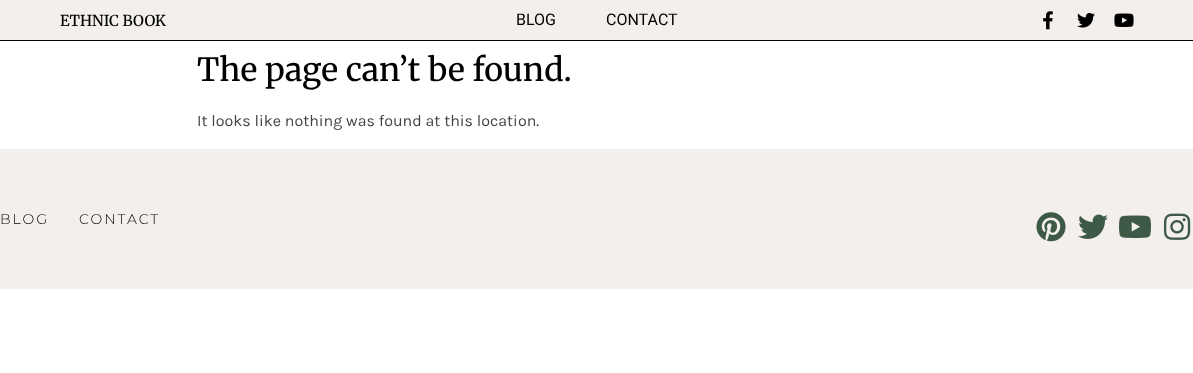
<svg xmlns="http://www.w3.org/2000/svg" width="1193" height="373">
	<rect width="100%" height="100%" fill="#FFFFFF" />
	<rect x="0" y="0" width="1193" height="40" fill="#F2EFEC" />
	<rect x="0" y="40" width="1193" height="1" fill="#000000" />
	<text x="60" y="26" font-family="Merriweather" font-size="15" font-weight="500" fill="#000000">ETHNIC BOOK</text>
	<g font-family="Roboto" font-size="16" fill="#000000">
		<text x="516" y="25">BLOG</text>
		<text x="606" y="25">CONTACT</text>
	</g>
	<image x="1043" y="11" width="10" height="19" href="assets/img1.png" />
	<image x="1077" y="12" width="18" height="16" href="assets/img2.png" />
	<image x="1114" y="13" width="20" height="14" href="assets/img3.png" />
	<text x="197" y="81" font-family="Merriweather" font-size="32" font-weight="500" fill="#000000">The page can’t be found.</text>
	<text x="197" y="126" font-family="Karla" font-size="16" fill="#444444">It looks like nothing was found at this location.</text>
	<rect x="0" y="149" width="1193" height="140" fill="#F2EFEC" />
	<g font-family="Montserrat" font-size="14" font-weight="300" letter-spacing="2" fill="#000000">
		<text x="0" y="224">BLOG</text>
		<text x="79" y="224">CONTACT</text>
	</g>
	<image x="1036" y="212" width="30" height="30" href="assets/img4.png" />
	<image x="1078" y="214" width="30" height="25" href="assets/img5.png" />
	<image x="1119" y="215" width="32" height="23" href="assets/img6.png" />
	<image x="1163" y="213" width="28" height="27" href="assets/img7.png" />
</svg>
